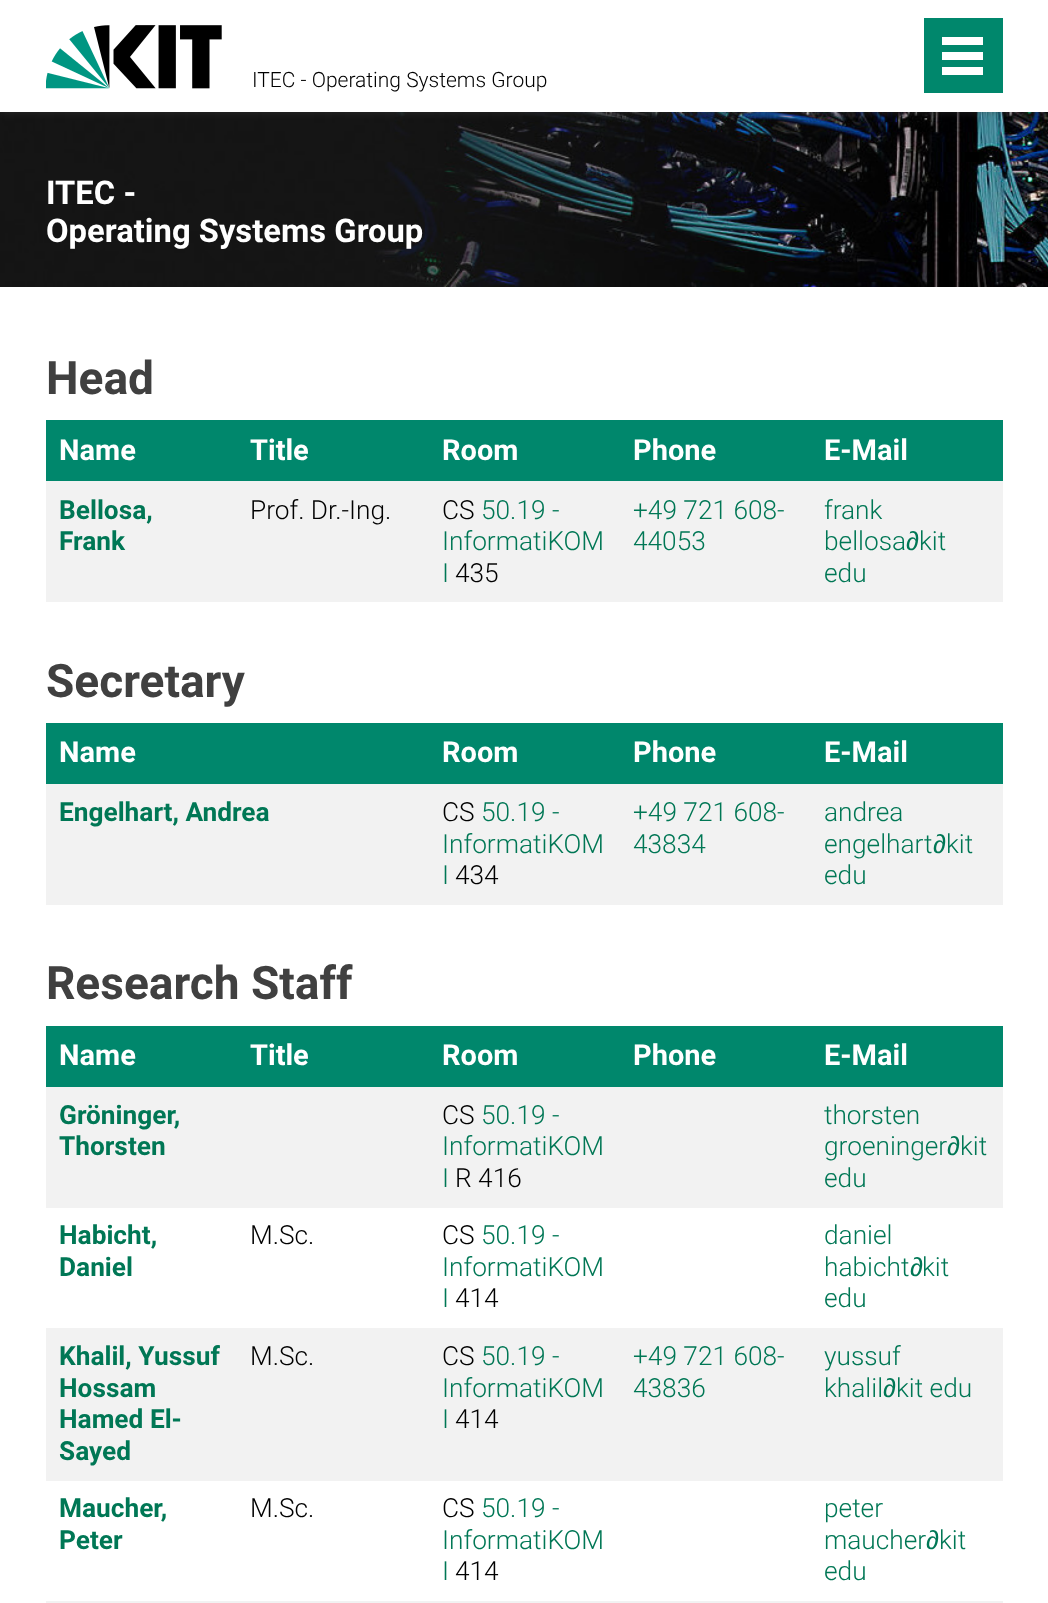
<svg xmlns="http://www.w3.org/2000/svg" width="1048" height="1603">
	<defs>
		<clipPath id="clip1"><rect x="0" y="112" width="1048" height="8" /></clipPath>
	</defs>
	<rect width="100%" height="100%" fill="#FFFFFF" />
	<image x="0" y="112" width="1048" height="175" href="assets/img2.png" />
	<g clip-path="url(#clip1)">
		<rect x="0" y="0" width="1048" height="112" fill="#404040" fill-opacity="0.5" filter="blur(4.5px)" />
	</g>
	<image x="46" y="25" width="176" height="64" href="assets/img1.png" />
	<text x="252" y="87" font-family="Roboto" font-size="21" font-weight="300" fill="#000000">ITEC - Operating Systems Group</text>
	<rect x="924" y="18" width="79" height="75" fill="#00876C" />
	<rect x="942" y="67" width="41" height="8" fill="#FFFFFF" />
	<rect x="942" y="52" width="41" height="8" fill="#FFFFFF" />
	<rect x="942" y="37" width="41" height="8" fill="#FFFFFF" />
	<g font-family="Roboto" font-size="32.75" font-weight="700" fill="#FFFFFF">
		<text x="46" y="204">ITEC -</text>
		<text x="46" y="242">Operating Systems Group</text>
	</g>
	<text x="46" y="394" font-family="Roboto" font-size="46" font-weight="700" fill="#404040">Head</text>
	<rect x="46" y="420" width="957" height="61" fill="#00876C" />
	<g font-family="Roboto" font-size="29" font-weight="700" fill="#FFFFFF">
		<text x="59" y="460">Name</text>
		<text x="250" y="460">Title</text>
		<text x="442" y="460">Room</text>
		<text x="633" y="460">Phone</text>
		<text x="824" y="460">E-Mail</text>
	</g>
	<rect x="46" y="481" width="957" height="121" fill="#F2F2F2" />
	<g font-family="Roboto" font-size="26.25" font-weight="700" fill="#007755">
		<text x="59" y="519">Bellosa,</text>
		<text x="59" y="550">Frank</text>
	</g>
	<g font-family="Roboto" font-size="26.25" font-weight="300" fill="#000000">
		<text x="250" y="519">Prof. Dr.-Ing.</text>
		<text x="442" y="519">CS</text>
	</g>
	<g font-family="Roboto" font-size="26.25" font-weight="300" fill="#007755">
		<text x="481" y="519">50.19 -</text>
		<text x="442" y="550">InformatiKOM</text>
		<text x="442" y="582">I</text>
	</g>
	<text x="455" y="582" font-family="Roboto" font-size="26.25" font-weight="300" fill="#000000">435</text>
	<g font-family="Roboto" font-size="26.25" font-weight="300" fill="#007755">
		<text x="633" y="519">+49 721 608-</text>
		<text x="633" y="550">44053</text>
		<text x="824" y="519">frank</text>
		<text x="824" y="550">bellosa</text>
	</g>
	<text x="906" y="550" font-family="Liberation Sans" font-size="26.25" fill="#007755">∂</text>
	<g font-family="Roboto" font-size="26.25" font-weight="300" fill="#007755">
		<text x="919" y="550">kit</text>
		<text x="824" y="582">edu</text>
	</g>
	<text x="46" y="697" font-family="Roboto" font-size="46" font-weight="700" fill="#404040">Secretary</text>
	<rect x="46" y="723" width="957" height="61" fill="#00876C" />
	<g font-family="Roboto" font-size="29" font-weight="700" fill="#FFFFFF">
		<text x="59" y="762">Name</text>
		<text x="442" y="762">Room</text>
		<text x="633" y="762">Phone</text>
		<text x="824" y="762">E-Mail</text>
	</g>
	<rect x="46" y="784" width="957" height="121" fill="#F2F2F2" />
	<text x="59" y="821" font-family="Roboto" font-size="26.25" font-weight="700" fill="#007755">Engelhart, Andrea</text>
	<text x="442" y="821" font-family="Roboto" font-size="26.25" font-weight="300" fill="#000000">CS</text>
	<g font-family="Roboto" font-size="26.25" font-weight="300" fill="#007755">
		<text x="481" y="821">50.19 -</text>
		<text x="442" y="853">InformatiKOM</text>
		<text x="442" y="884">I</text>
	</g>
	<text x="455" y="884" font-family="Roboto" font-size="26.25" font-weight="300" fill="#000000">434</text>
	<g font-family="Roboto" font-size="26.25" font-weight="300" fill="#007755">
		<text x="633" y="821">+49 721 608-</text>
		<text x="633" y="853">43834</text>
		<text x="824" y="821">andrea</text>
		<text x="824" y="853">engelhart</text>
	</g>
	<text x="933" y="853" font-family="Liberation Sans" font-size="26.25" fill="#007755">∂</text>
	<g font-family="Roboto" font-size="26.25" font-weight="300" fill="#007755">
		<text x="946" y="853">kit</text>
		<text x="824" y="884">edu</text>
	</g>
	<text x="46" y="999" font-family="Roboto" font-size="46" font-weight="700" fill="#404040">Research Staff</text>
	<rect x="46" y="1026" width="957" height="61" fill="#00876C" />
	<g font-family="Roboto" font-size="29" font-weight="700" fill="#FFFFFF">
		<text x="59" y="1065">Name</text>
		<text x="250" y="1065">Title</text>
		<text x="442" y="1065">Room</text>
		<text x="633" y="1065">Phone</text>
		<text x="824" y="1065">E-Mail</text>
	</g>
	<rect x="46" y="1087" width="957" height="121" fill="#F2F2F2" />
	<g font-family="Roboto" font-size="26.25" font-weight="700" fill="#007755">
		<text x="59" y="1124">Gröninger,</text>
		<text x="59" y="1155">Thorsten</text>
	</g>
	<text x="442" y="1124" font-family="Roboto" font-size="26.25" font-weight="300" fill="#000000">CS</text>
	<g font-family="Roboto" font-size="26.25" font-weight="300" fill="#007755">
		<text x="481" y="1124">50.19 -</text>
		<text x="442" y="1155">InformatiKOM</text>
		<text x="442" y="1187">I</text>
	</g>
	<text x="455" y="1187" font-family="Roboto" font-size="26.25" font-weight="300" fill="#000000">R 416</text>
	<g font-family="Roboto" font-size="26.25" font-weight="300" fill="#007755">
		<text x="824" y="1124">thorsten</text>
		<text x="824" y="1155">groeninger</text>
	</g>
	<text x="947" y="1155" font-family="Liberation Sans" font-size="26.25" fill="#007755">∂</text>
	<g font-family="Roboto" font-size="26.25" font-weight="300" fill="#007755">
		<text x="960" y="1155">kit</text>
		<text x="824" y="1187">edu</text>
	</g>
	<g font-family="Roboto" font-size="26.25" font-weight="700" fill="#007755">
		<text x="59" y="1244">Habicht,</text>
		<text x="59" y="1276">Daniel</text>
	</g>
	<g font-family="Roboto" font-size="26.25" font-weight="300" fill="#000000">
		<text x="250" y="1244">M.Sc.</text>
		<text x="442" y="1244">CS</text>
	</g>
	<g font-family="Roboto" font-size="26.25" font-weight="300" fill="#007755">
		<text x="481" y="1244">50.19 -</text>
		<text x="442" y="1276">InformatiKOM</text>
		<text x="442" y="1307">I</text>
	</g>
	<text x="455" y="1307" font-family="Roboto" font-size="26.25" font-weight="300" fill="#000000">414</text>
	<g font-family="Roboto" font-size="26.25" font-weight="300" fill="#007755">
		<text x="824" y="1244">daniel</text>
		<text x="824" y="1276">habicht</text>
	</g>
	<text x="910" y="1276" font-family="Liberation Sans" font-size="26.25" fill="#007755">∂</text>
	<g font-family="Roboto" font-size="26.25" font-weight="300" fill="#007755">
		<text x="922" y="1276">kit</text>
		<text x="824" y="1307">edu</text>
	</g>
	<rect x="46" y="1328" width="957" height="153" fill="#F2F2F2" />
	<g font-family="Roboto" font-size="26.25" font-weight="700" fill="#007755">
		<text x="59" y="1365">Khalil, Yussuf</text>
		<text x="59" y="1397">Hossam</text>
		<text x="59" y="1428">Hamed El-</text>
		<text x="59" y="1460">Sayed</text>
	</g>
	<g font-family="Roboto" font-size="26.25" font-weight="300" fill="#000000">
		<text x="250" y="1365">M.Sc.</text>
		<text x="442" y="1365">CS</text>
	</g>
	<g font-family="Roboto" font-size="26.25" font-weight="300" fill="#007755">
		<text x="481" y="1365">50.19 -</text>
		<text x="442" y="1397">InformatiKOM</text>
		<text x="442" y="1428">I</text>
	</g>
	<text x="455" y="1428" font-family="Roboto" font-size="26.25" font-weight="300" fill="#000000">414</text>
	<g font-family="Roboto" font-size="26.25" font-weight="300" fill="#007755">
		<text x="633" y="1365">+49 721 608-</text>
		<text x="633" y="1397">43836</text>
		<text x="824" y="1365">yussuf</text>
		<text x="824" y="1397">khalil</text>
	</g>
	<text x="883" y="1397" font-family="Liberation Sans" font-size="26.25" fill="#007755">∂</text>
	<text x="896" y="1397" font-family="Roboto" font-size="26.25" font-weight="300" fill="#007755">kit edu</text>
	<g font-family="Roboto" font-size="26.25" font-weight="700" fill="#007755">
		<text x="59" y="1517">Maucher,</text>
		<text x="59" y="1549">Peter</text>
	</g>
	<g font-family="Roboto" font-size="26.25" font-weight="300" fill="#000000">
		<text x="250" y="1517">M.Sc.</text>
		<text x="442" y="1517">CS</text>
	</g>
	<g font-family="Roboto" font-size="26.25" font-weight="300" fill="#007755">
		<text x="481" y="1517">50.19 -</text>
		<text x="442" y="1549">InformatiKOM</text>
		<text x="442" y="1580">I</text>
	</g>
	<text x="455" y="1580" font-family="Roboto" font-size="26.25" font-weight="300" fill="#000000">414</text>
	<g font-family="Roboto" font-size="26.25" font-weight="300" fill="#007755">
		<text x="824" y="1517">peter</text>
		<text x="824" y="1549">maucher</text>
	</g>
	<text x="926" y="1549" font-family="Liberation Sans" font-size="26.25" fill="#007755">∂</text>
	<g font-family="Roboto" font-size="26.25" font-weight="300" fill="#007755">
		<text x="939" y="1549">kit</text>
		<text x="824" y="1580">edu</text>
	</g>
	<rect x="46" y="1601" width="957" height="2" fill="#F2F2F2" />
</svg>
